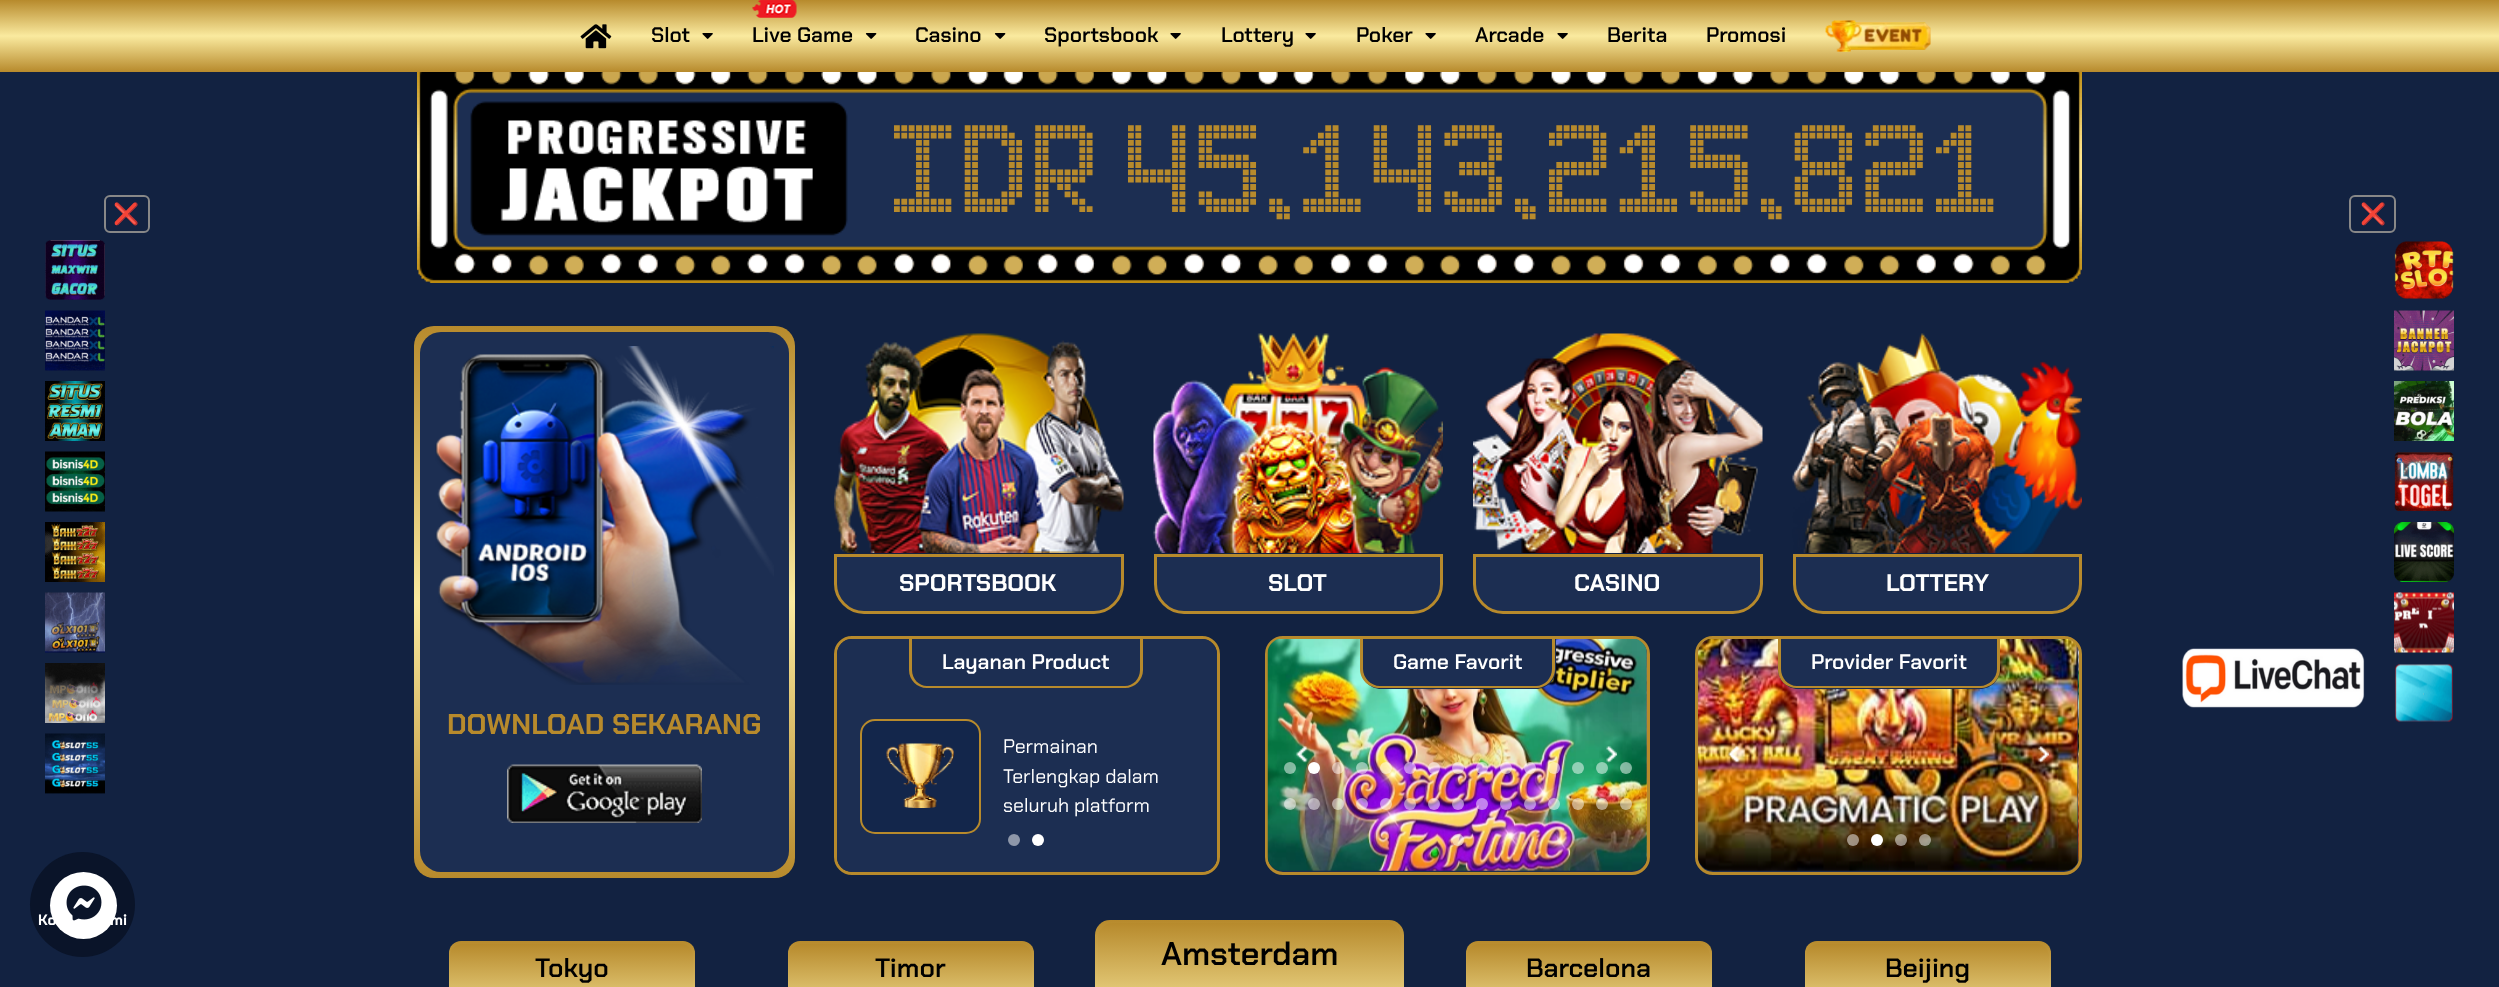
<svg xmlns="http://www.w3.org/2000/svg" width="2499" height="987">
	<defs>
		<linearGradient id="g1" gradientUnits="userSpaceOnUse" x1="1250" y1="0" x2="1250" y2="72"><stop offset="0" stop-color="#B78A2C" /><stop offset="0.5" stop-color="#FAEA9F" /><stop offset="1" stop-color="#B78A2C" /></linearGradient>
		<linearGradient id="g2" gradientUnits="userSpaceOnUse" x1="1176" y1="325" x2="1176" y2="878"><stop offset="0" stop-color="#B78A2C" /><stop offset="0.5" stop-color="#FAEA9F" /><stop offset="1" stop-color="#B78A2C" /></linearGradient>
		<linearGradient id="g3" gradientUnits="userSpaceOnUse" x1="1250" y1="920" x2="1250" y2="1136"><stop offset="0" stop-color="#B78A2C" /><stop offset="0.5" stop-color="#FAEA9F" /><stop offset="1" stop-color="#B78A2C" /></linearGradient>
		<linearGradient id="g4" gradientUnits="userSpaceOnUse" x1="1250" y1="923" x2="1250" y2="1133"><stop offset="0" stop-color="#B78A2C" /><stop offset="0.5" stop-color="#FAEA9F" /><stop offset="1" stop-color="#B78A2C" /></linearGradient>
		<linearGradient id="g5" gradientUnits="userSpaceOnUse" x1="572" y1="941" x2="572" y2="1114"><stop offset="0" stop-color="#B78A2C" /><stop offset="0.5" stop-color="#FAEA9F" /><stop offset="1" stop-color="#B78A2C" /></linearGradient>
		<linearGradient id="g6" gradientUnits="userSpaceOnUse" x1="572" y1="944" x2="572" y2="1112"><stop offset="0" stop-color="#B78A2C" /><stop offset="0.5" stop-color="#FAEA9F" /><stop offset="1" stop-color="#B78A2C" /></linearGradient>
		<linearGradient id="g7" gradientUnits="userSpaceOnUse" x1="911" y1="941" x2="911" y2="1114"><stop offset="0" stop-color="#B78A2C" /><stop offset="0.5" stop-color="#FAEA9F" /><stop offset="1" stop-color="#B78A2C" /></linearGradient>
		<linearGradient id="g8" gradientUnits="userSpaceOnUse" x1="911" y1="944" x2="911" y2="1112"><stop offset="0" stop-color="#B78A2C" /><stop offset="0.5" stop-color="#FAEA9F" /><stop offset="1" stop-color="#B78A2C" /></linearGradient>
		<linearGradient id="g9" gradientUnits="userSpaceOnUse" x1="1589" y1="941" x2="1589" y2="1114"><stop offset="0" stop-color="#B78A2C" /><stop offset="0.5" stop-color="#FAEA9F" /><stop offset="1" stop-color="#B78A2C" /></linearGradient>
		<linearGradient id="g10" gradientUnits="userSpaceOnUse" x1="1589" y1="944" x2="1589" y2="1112"><stop offset="0" stop-color="#B78A2C" /><stop offset="0.5" stop-color="#FAEA9F" /><stop offset="1" stop-color="#B78A2C" /></linearGradient>
		<linearGradient id="g11" gradientUnits="userSpaceOnUse" x1="1928" y1="941" x2="1928" y2="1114"><stop offset="0" stop-color="#B78A2C" /><stop offset="0.5" stop-color="#FAEA9F" /><stop offset="1" stop-color="#B78A2C" /></linearGradient>
		<linearGradient id="g12" gradientUnits="userSpaceOnUse" x1="1928" y1="944" x2="1928" y2="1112"><stop offset="0" stop-color="#B78A2C" /><stop offset="0.5" stop-color="#FAEA9F" /><stop offset="1" stop-color="#B78A2C" /></linearGradient>
	</defs>
	<rect width="100%" height="100%" fill="#122241" />
	<rect x="0" y="0" width="2499" height="72" fill="url(#g1)" />
	<image x="580" y="24" width="32" height="25" href="assets/img1.png" />
	<text x="651" y="42" font-family="Chakra Petch" font-size="21" font-weight="600" fill="#000000">Slot</text>
	<image x="702" y="33" width="11" height="6" href="assets/img2.png" />
	<image x="752" y="0" width="45" height="18" href="assets/img3.png" />
	<text x="752" y="42" font-family="Chakra Petch" font-size="21" font-weight="600" fill="#000000">Live Game</text>
	<image x="865" y="33" width="12" height="6" href="assets/img4.png" />
	<text x="915" y="42" font-family="Chakra Petch" font-size="21" font-weight="600" fill="#000000">Casino</text>
	<image x="994" y="33" width="12" height="6" href="assets/img4.png" />
	<text x="1044" y="42" font-family="Chakra Petch" font-size="21" font-weight="600" fill="#000000">Sportsbook</text>
	<image x="1170" y="33" width="11" height="6" href="assets/img2.png" />
	<text x="1221" y="42" font-family="Chakra Petch" font-size="21" font-weight="600" fill="#000000">Lottery</text>
	<image x="1305" y="33" width="11" height="6" href="assets/img2.png" />
	<text x="1356" y="42" font-family="Chakra Petch" font-size="21" font-weight="600" fill="#000000">Poker</text>
	<image x="1425" y="33" width="11" height="6" href="assets/img2.png" />
	<text x="1475" y="42" font-family="Chakra Petch" font-size="21" font-weight="600" fill="#000000">Arcade</text>
	<image x="1557" y="33" width="11" height="6" href="assets/img2.png" />
	<g font-family="Chakra Petch" font-size="21" font-weight="600" fill="#000000">
		<text x="1607" y="42">Berita</text>
		<text x="1706" y="42">Promosi</text>
	</g>
	<image x="1825" y="20" width="106" height="32" href="assets/img5.png" />
	<rect x="105" y="196" width="44" height="36" rx="5" fill="none" stroke="#888888" stroke-width="2" />
	<text x="113" y="221" font-family="Noto Color Emoji" font-size="21" fill="#000000">❌</text>
	<image x="45" y="240" width="60" height="60" href="assets/img6.png" />
	<image x="45" y="310" width="60" height="61" href="assets/img7.png" />
	<image x="45" y="381" width="60" height="60" href="assets/img8.png" />
	<image x="45" y="451" width="60" height="61" href="assets/img9.png" />
	<image x="45" y="522" width="60" height="60" href="assets/img10.png" />
	<image x="45" y="592" width="60" height="61" href="assets/img11.png" />
	<image x="45" y="663" width="60" height="60" href="assets/img12.png" />
	<image x="45" y="733" width="60" height="61" href="assets/img13.png" />
	<image x="417" y="72" width="1665" height="211" href="assets/img14.png" />
	<g font-family="'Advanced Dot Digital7'" font-size="73.5" font-weight="700" letter-spacing="4.5" fill="#B78A2C">
		<text x="894" y="212">IDR</text>
		<text x="1128" y="212">45,143,215,821</text>
	</g>
	<rect x="414" y="326" width="381" height="552" rx="20" fill="url(#g2)" />
	<rect x="420" y="332" width="369" height="540" rx="21" fill="#1C2E52" />
	<image x="435" y="346" width="339" height="339" href="assets/img15.png" />
	<text x="447" y="734" font-family="Chakra Petch" font-size="28.5" font-weight="700" fill="#B78A2C">DOWNLOAD SEKARANG</text>
	<image x="507" y="764" width="195" height="59" href="assets/img16.png" />
	<image x="834" y="333" width="290" height="220" href="assets/img17.png" />
	<path d="M835.5 555.5H1122.5V584C1122.5 599.5 1109.5 612.5 1094 612.5H864C848.5 612.5 835.5 599.5 835.5 584Z" fill="#1C2E52" stroke="#B78A2C" stroke-width="3" />
	<text x="899" y="591" font-family="Chakra Petch" font-size="24" font-weight="700" fill="#FFFFFF">SPORTSBOOK</text>
	<image x="1153" y="333" width="290" height="220" href="assets/img18.png" />
	<path d="M1155.5 555.5H1441.5V584C1441.5 599.5 1428.5 612.5 1413 612.5H1184C1168.5 612.5 1155.5 599.5 1155.5 584Z" fill="#1C2E52" stroke="#B78A2C" stroke-width="3" />
	<text x="1268" y="591" font-family="Chakra Petch" font-size="24" font-weight="700" fill="#FFFFFF">SLOT</text>
	<image x="1473" y="333" width="290" height="220" href="assets/img19.png" />
	<path d="M1474.5 555.5H1761.5V584C1761.5 599.5 1748.5 612.5 1733 612.5H1503C1487.5 612.5 1474.5 599.5 1474.5 584Z" fill="#1C2E52" stroke="#B78A2C" stroke-width="3" />
	<text x="1574" y="591" font-family="Chakra Petch" font-size="24" font-weight="700" fill="#FFFFFF">CASINO</text>
	<image x="1792" y="333" width="290" height="220" href="assets/img20.png" />
	<path d="M1794.5 555.5H2080.5V584C2080.5 599.5 2067.5 612.5 2052 612.5H1823C1807.5 612.5 1794.5 599.5 1794.5 584Z" fill="#1C2E52" stroke="#B78A2C" stroke-width="3" />
	<text x="1886" y="591" font-family="Chakra Petch" font-size="24" font-weight="700" fill="#FFFFFF">LOTTERY</text>
	<rect x="835.5" y="637.5" width="383" height="236" rx="16.5" fill="none" stroke="#B78A2C" stroke-width="3" />
	<rect x="837" y="639" width="380" height="233" rx="15" fill="#1C2E52" />
	<path d="M909 639H1143V670C1143 680 1135 688 1125 688H927C917 688 909 680 909 670ZM912 639H1140V670C1140 679 1133 686 1125 686H927C919 686 912 679 912 670Z" fill="#B78A2C" fill-rule="evenodd" />
	<text x="942" y="669" font-family="Chakra Petch" font-size="21" font-weight="600" fill="#FFFFFF">Layanan Product</text>
	<rect x="861" y="720" width="119" height="113" rx="14" fill="#13264B" stroke="#B78A2C" stroke-width="2" />
	<image x="886" y="743" width="68" height="65" href="assets/img21.png" />
	<g font-family="Chakra Petch" font-size="19.5" fill="#FFFFFF">
		<text x="1003" y="753">Permainan</text>
		<text x="1003" y="783">Terlengkap dalam</text>
		<text x="1003" y="812">seluruh platform</text>
	</g>
	<circle cx="1014" cy="840" r="6" fill="#8E97A9" />
	<circle cx="1038" cy="840" r="6" fill="#FFFFFF" />
	<rect x="1266.5" y="637.5" width="382" height="236" rx="16.5" fill="#1C2E52" stroke="#B78A2C" stroke-width="3" />
	<image x="1267" y="639" width="380" height="232" href="assets/img22.png" />
	<image x="1646" y="649" width="1" height="212" href="assets/img23.png" />
	<image x="1296" y="746" width="12" height="17" href="assets/img24.png" />
	<circle cx="1602" cy="768" r="6" fill="#FFFFFF" fill-opacity="0.5" />
	<image x="1606" y="746" width="11" height="17" href="assets/img25.png" />
	<circle cx="1290" cy="768" r="6" fill="#FFFFFF" fill-opacity="0.5" />
	<circle cx="1314" cy="768" r="6" fill="#FFFFFF" />
	<circle cx="1338" cy="768" r="6" fill="#FFFFFF" fill-opacity="0.5" />
	<circle cx="1362" cy="768" r="6" fill="#FFFFFF" fill-opacity="0.5" />
	<circle cx="1386" cy="768" r="6" fill="#FFFFFF" fill-opacity="0.5" />
	<circle cx="1410" cy="768" r="6" fill="#FFFFFF" fill-opacity="0.5" />
	<circle cx="1434" cy="768" r="6" fill="#FFFFFF" fill-opacity="0.5" />
	<circle cx="1458" cy="768" r="6" fill="#FFFFFF" fill-opacity="0.5" />
	<circle cx="1482" cy="768" r="6" fill="#FFFFFF" fill-opacity="0.5" />
	<circle cx="1506" cy="768" r="6" fill="#FFFFFF" fill-opacity="0.5" />
	<circle cx="1530" cy="768" r="6" fill="#FFFFFF" fill-opacity="0.5" />
	<circle cx="1554" cy="768" r="6" fill="#FFFFFF" fill-opacity="0.5" />
	<circle cx="1578" cy="768" r="6" fill="#FFFFFF" fill-opacity="0.5" />
	<circle cx="1626" cy="768" r="6" fill="#FFFFFF" fill-opacity="0.5" />
	<circle cx="1290" cy="804" r="6" fill="#FFFFFF" fill-opacity="0.5" />
	<circle cx="1314" cy="804" r="6" fill="#FFFFFF" fill-opacity="0.5" />
	<circle cx="1338" cy="804" r="6" fill="#FFFFFF" fill-opacity="0.5" />
	<circle cx="1362" cy="804" r="6" fill="#FFFFFF" fill-opacity="0.5" />
	<circle cx="1386" cy="804" r="6" fill="#FFFFFF" fill-opacity="0.5" />
	<circle cx="1410" cy="804" r="6" fill="#FFFFFF" fill-opacity="0.5" />
	<circle cx="1434" cy="804" r="6" fill="#FFFFFF" fill-opacity="0.5" />
	<circle cx="1458" cy="804" r="6" fill="#FFFFFF" fill-opacity="0.5" />
	<circle cx="1482" cy="804" r="6" fill="#FFFFFF" fill-opacity="0.5" />
	<circle cx="1506" cy="804" r="6" fill="#FFFFFF" fill-opacity="0.5" />
	<circle cx="1530" cy="804" r="6" fill="#FFFFFF" fill-opacity="0.5" />
	<circle cx="1554" cy="804" r="6" fill="#FFFFFF" fill-opacity="0.5" />
	<circle cx="1578" cy="804" r="6" fill="#FFFFFF" fill-opacity="0.5" />
	<circle cx="1602" cy="804" r="6" fill="#FFFFFF" fill-opacity="0.5" />
	<circle cx="1626" cy="804" r="6" fill="#FFFFFF" fill-opacity="0.5" />
	<circle cx="1458" cy="840" r="6" fill="#FFFFFF" fill-opacity="0.5" />
	<path d="M1361 639H1556V669C1556 680 1547 689 1536 689H1381C1370 689 1361 680 1361 669Z" fill="#1C2E52" />
	<path d="M1360 639H1555V669C1555 680 1546 688 1536 688H1380C1369 688 1360 680 1360 669ZM1363 639H1552V669C1552 678 1545 686 1536 686H1380C1371 686 1363 678 1363 669Z" fill="#B78A2C" fill-rule="evenodd" />
	<text x="1393" y="669" font-family="Chakra Petch" font-size="21" font-weight="600" fill="#FFFFFF">Game Favorit</text>
	<rect x="1696.5" y="637.5" width="384" height="236" rx="16.5" fill="#1C2E52" stroke="#B78A2C" stroke-width="3" />
	<image x="1698" y="650" width="1" height="211" href="assets/img28.png" />
	<image x="1698" y="639" width="380" height="232" href="assets/img26.png" />
	<image x="2078" y="648" width="1" height="213" href="assets/img27.png" />
	<image x="1728" y="746" width="12" height="17" href="assets/img29.png" />
	<image x="2038" y="746" width="11" height="17" href="assets/img30.png" />
	<circle cx="1853" cy="840" r="6" fill="#FFFFFF" fill-opacity="0.5" />
	<circle cx="1877" cy="840" r="6" fill="#FFFFFF" />
	<circle cx="1901" cy="840" r="6" fill="#FFFFFF" fill-opacity="0.5" />
	<circle cx="1925" cy="840" r="6" fill="#FFFFFF" fill-opacity="0.5" />
	<path d="M1778 639H2000V669C2000 680 1991 689 1980 689H1798C1787 689 1778 680 1778 669Z" fill="#1C2E52" />
	<path d="M1778 639H2000V669C2000 680 1991 688 1980 688H1797C1786 688 1778 680 1778 669ZM1781 639H1997V669C1997 678 1989 686 1980 686H1797C1788 686 1781 678 1781 669Z" fill="#B78A2C" fill-rule="evenodd" />
	<text x="1811" y="669" font-family="Chakra Petch" font-size="21" font-weight="600" fill="#FFFFFF">Provider Favorit</text>
	<rect x="1095" y="920" width="309" height="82" rx="15" fill="url(#g3)" />
	<rect x="1098" y="923" width="303" height="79" rx="15" fill="url(#g4)" />
	<text x="1161" y="965" font-family="Chakra Petch" font-size="33" font-weight="600" fill="#000000">Amsterdam</text>
	<rect x="449" y="941" width="246" height="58" rx="12" fill="url(#g5)" />
	<rect x="450" y="944" width="243" height="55" rx="12" fill="url(#g6)" />
	<text x="535" y="977" font-family="Chakra Petch" font-size="26.5" font-weight="600" fill="#000000">Tokyo</text>
	<rect x="788" y="941" width="246" height="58" rx="12" fill="url(#g7)" />
	<rect x="789" y="944" width="243" height="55" rx="12" fill="url(#g8)" />
	<text x="875" y="977" font-family="Chakra Petch" font-size="26.5" font-weight="600" fill="#000000">Timor</text>
	<rect x="1466" y="941" width="246" height="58" rx="12" fill="url(#g9)" />
	<rect x="1467" y="944" width="243" height="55" rx="12" fill="url(#g10)" />
	<text x="1526" y="977" font-family="Chakra Petch" font-size="26.5" font-weight="600" fill="#000000">Barcelona</text>
	<rect x="1805" y="941" width="246" height="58" rx="12" fill="url(#g11)" />
	<rect x="1806" y="944" width="243" height="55" rx="12" fill="url(#g12)" />
	<text x="1885" y="977" font-family="Chakra Petch" font-size="26.5" font-weight="600" fill="#000000">Beijing</text>
	<rect x="2350" y="196" width="45" height="36" rx="5" fill="none" stroke="#888888" stroke-width="2" />
	<text x="2360" y="221" font-family="Noto Color Emoji" font-size="21" fill="#000000">❌</text>
	<image x="2394" y="241" width="60" height="58" href="assets/img31.png" />
	<image x="2394" y="310" width="60" height="61" href="assets/img32.png" />
	<image x="2394" y="381" width="60" height="60" href="assets/img33.png" />
	<image x="2394" y="452" width="60" height="59" href="assets/img34.png" />
	<image x="2394" y="522" width="60" height="60" href="assets/img35.png" />
	<image x="2394" y="592" width="60" height="61" href="assets/img36.png" />
	<image x="2395" y="664" width="58" height="58" href="assets/img37.png" />
	<image x="2182" y="648" width="183" height="60" href="assets/img38.png" />
	<circle cx="82.5" cy="904.5" r="52.5" fill="#0A1429" />
	<circle cx="83.5" cy="905.5" r="33.5" fill="#FFFFFF" />
	<image x="66" y="885" width="36" height="36" href="assets/img39.png" />
	<g font-family="Chakra Petch" font-size="15" font-weight="700" fill="#FFFFFF">
		<text x="38" y="925">Ko</text>
		<text x="110" y="925">mi</text>
	</g>
</svg>
